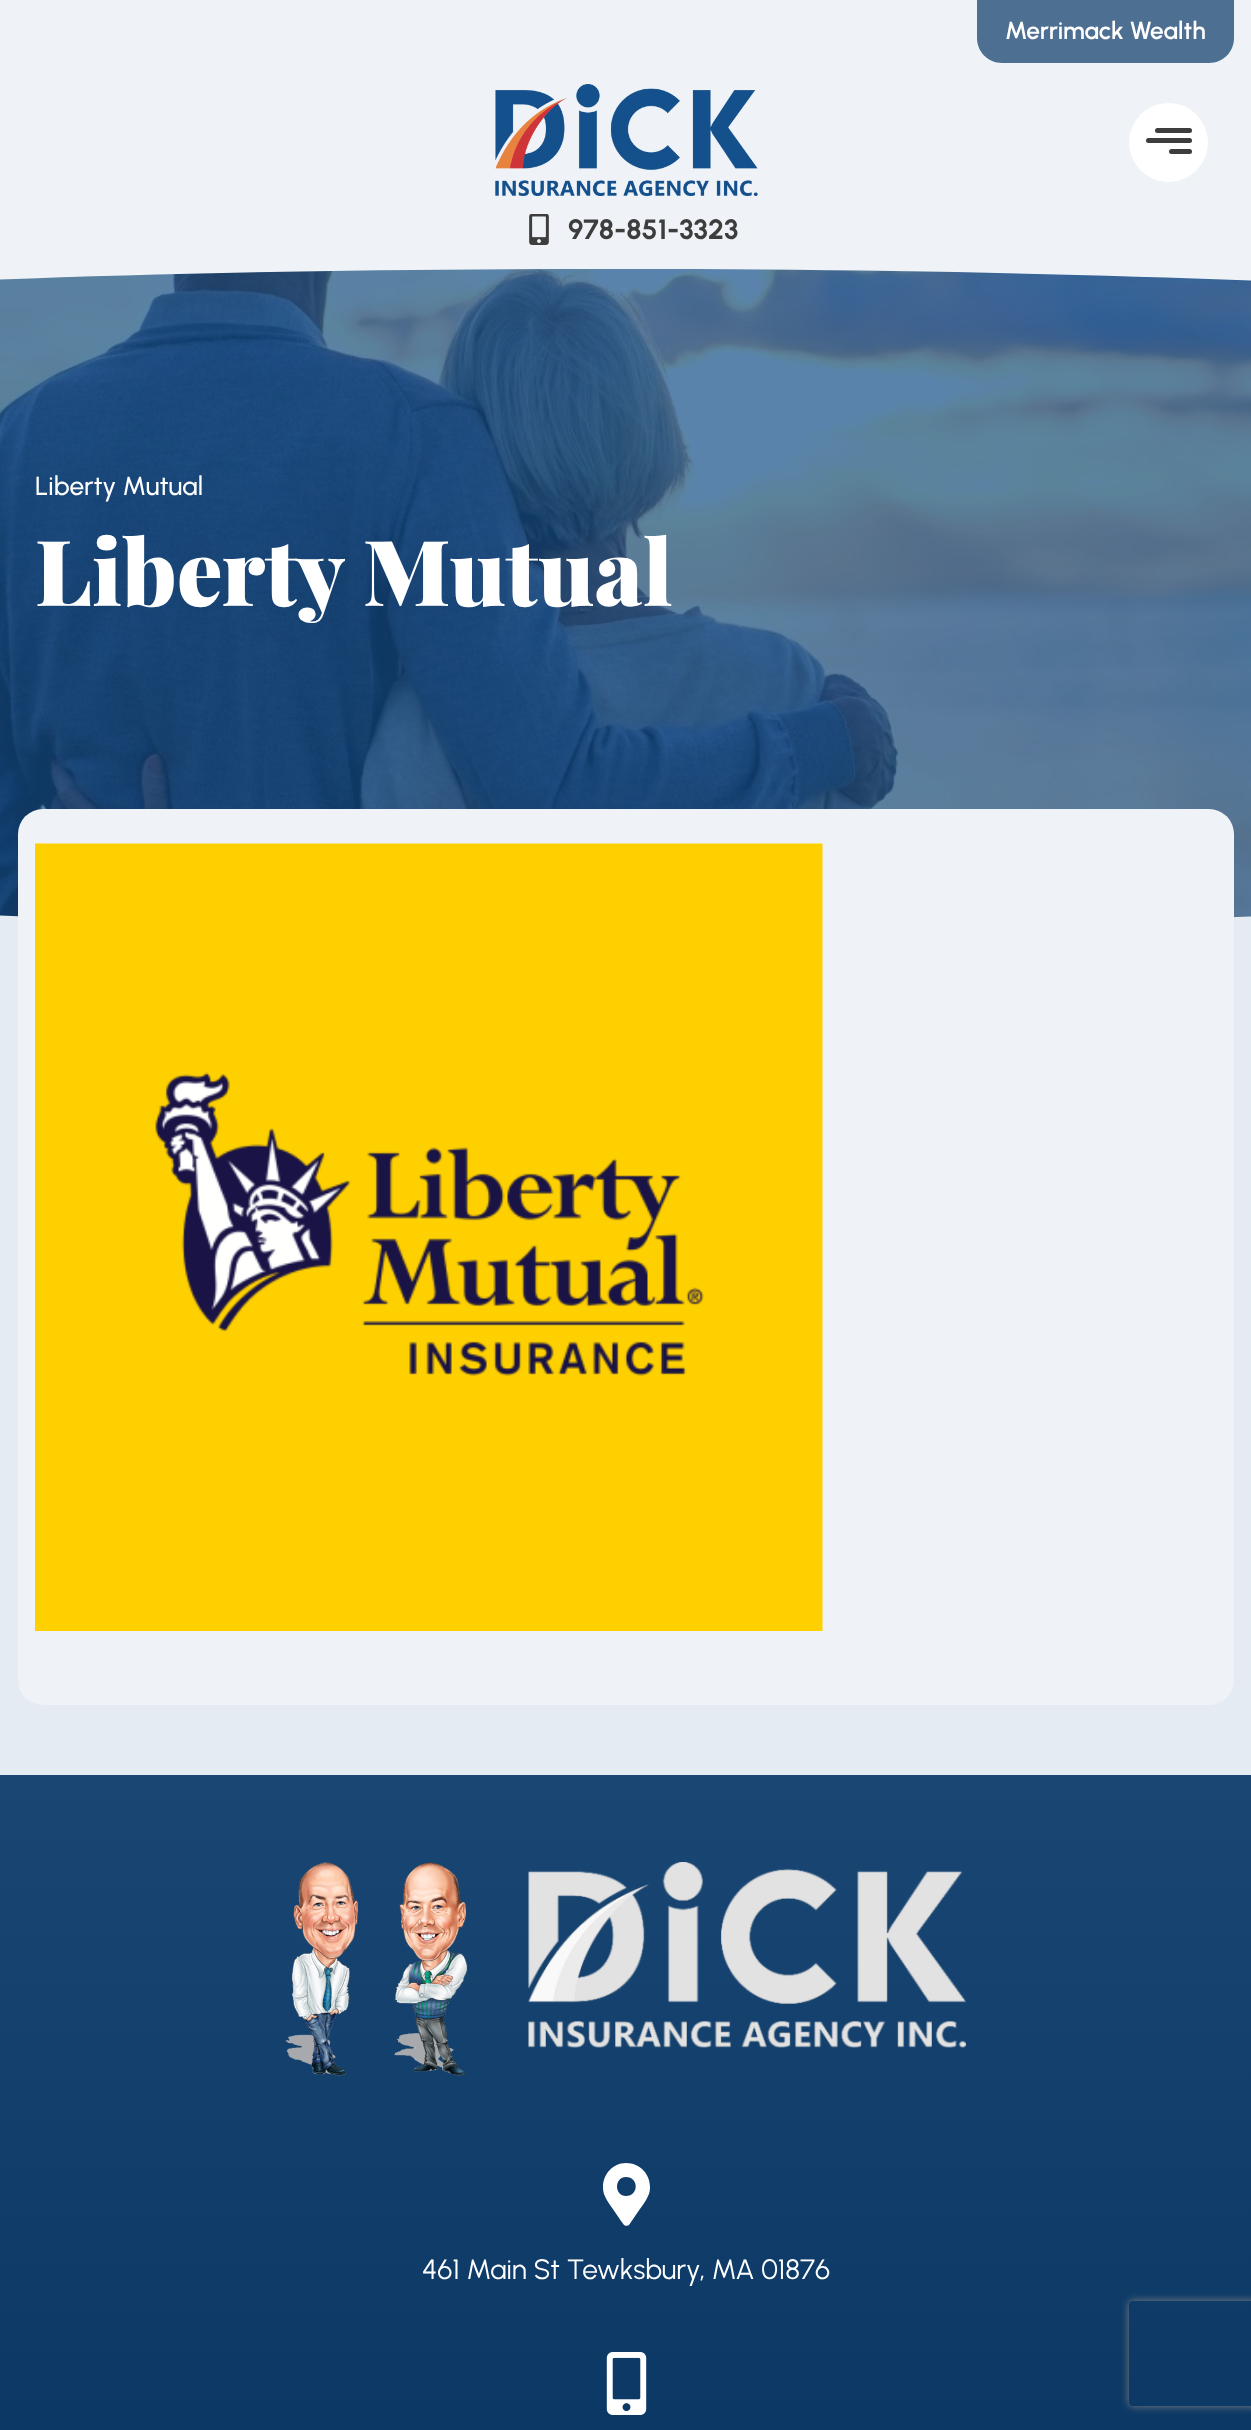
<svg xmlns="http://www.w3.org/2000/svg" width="1251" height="2430">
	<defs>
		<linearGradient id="g1" gradientUnits="userSpaceOnUse" x1="626" y1="1775" x2="626" y2="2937"><stop offset="0" stop-color="#194673" /><stop offset="1" stop-color="#002D59" /></linearGradient>
		<clipPath id="clip1"><path d="M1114 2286H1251V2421H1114ZM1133 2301H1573C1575 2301 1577 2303 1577 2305V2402C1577 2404 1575 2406 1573 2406H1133C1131 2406 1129 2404 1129 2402V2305C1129 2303 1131 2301 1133 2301Z" clip-rule="evenodd" /></clipPath>
	</defs>
	<rect width="100%" height="100%" fill="#E4EBF3" />
	<rect x="0" y="0" width="1251" height="263" fill="#EFF3F7" />
	<path d="M977 0H1234V38C1234 52 1223 63 1209 63H1002C988 63 977 52 977 38Z" fill="#4D6F91" />
	<text x="1005" y="39" font-family="Urbanist" font-size="24.5" font-weight="600" fill="#FFFFFF">Merrimack Wealth</text>
	<circle cx="1168.5" cy="142.5" r="39.5" fill="#FFFFFF" />
	<rect x="1155" y="128" width="37" height="5" rx="2.5" fill="#3D3D3D" />
	<rect x="1146" y="138" width="46" height="5" rx="2.5" fill="#3D3D3D" />
	<rect x="1169" y="149" width="23" height="5" rx="2.5" fill="#3D3D3D" />
	<image x="495" y="84" width="263" height="112" href="assets/img1.png" />
	<image x="529" y="214" width="20" height="31" href="assets/img2.png" />
	<text x="568" y="239" font-family="Urbanist" font-size="28" font-weight="700" fill="#3D3D3D">978-851-3323</text>
	<image x="0" y="269" width="1251" height="649" href="assets/img3.png" />
	<path d="M625 269C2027 270 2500 417 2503 456V263H-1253V454C-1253 418-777 267 625 269Z" fill="#EFF3F7" />
	<text x="35" y="495" font-family="Urbanist" font-size="26.25" font-weight="500" fill="#FFFFFF">Liberty Mutual</text>
	<text x="35" y="606" font-family="Playfair Display" font-size="91" font-weight="900" fill="#FFFFFF">Liberty Mutual</text>
	<path d="M626 927C-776 926-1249 778-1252 740V933H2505V742C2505 778 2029 929 626 927Z" fill="#E4EBF3" />
	<rect x="18" y="809" width="1216" height="896" rx="25" fill="#EFF3F7" />
	<image x="35" y="843" width="788" height="788" href="assets/img4.png" />
	<rect x="0" y="1775" width="1251" height="655" fill="url(#g1)" />
	<image x="285" y="1862" width="74" height="214" href="assets/img5.png" />
	<image x="394" y="1862" width="74" height="214" href="assets/img6.png" />
	<image x="528" y="1862" width="438" height="186" href="assets/img7.png" />
	<path d="M624 2225C606 2199 603 2196 603 2187C603 2174 613 2163 626 2163C640 2163 650 2174 650 2187C650 2196 647 2199 629 2225C628 2226 625 2226 624 2225ZM626 2196C639 2196 639 2177 626 2177C614 2177 614 2196 626 2196Z" fill="#FFFFFF" />
	<text x="422" y="2279" font-family="Urbanist" font-size="28" fill="#FFFFFF">461 Main St Tewksbury, MA 01876</text>
	<image x="606" y="2352" width="41" height="63" href="assets/img8.png" />
	<g clip-path="url(#clip1)">
		<rect x="1129" y="2301" width="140" height="105" rx="4" fill="#808080" filter="blur(4.5px)" />
	</g>
</svg>
